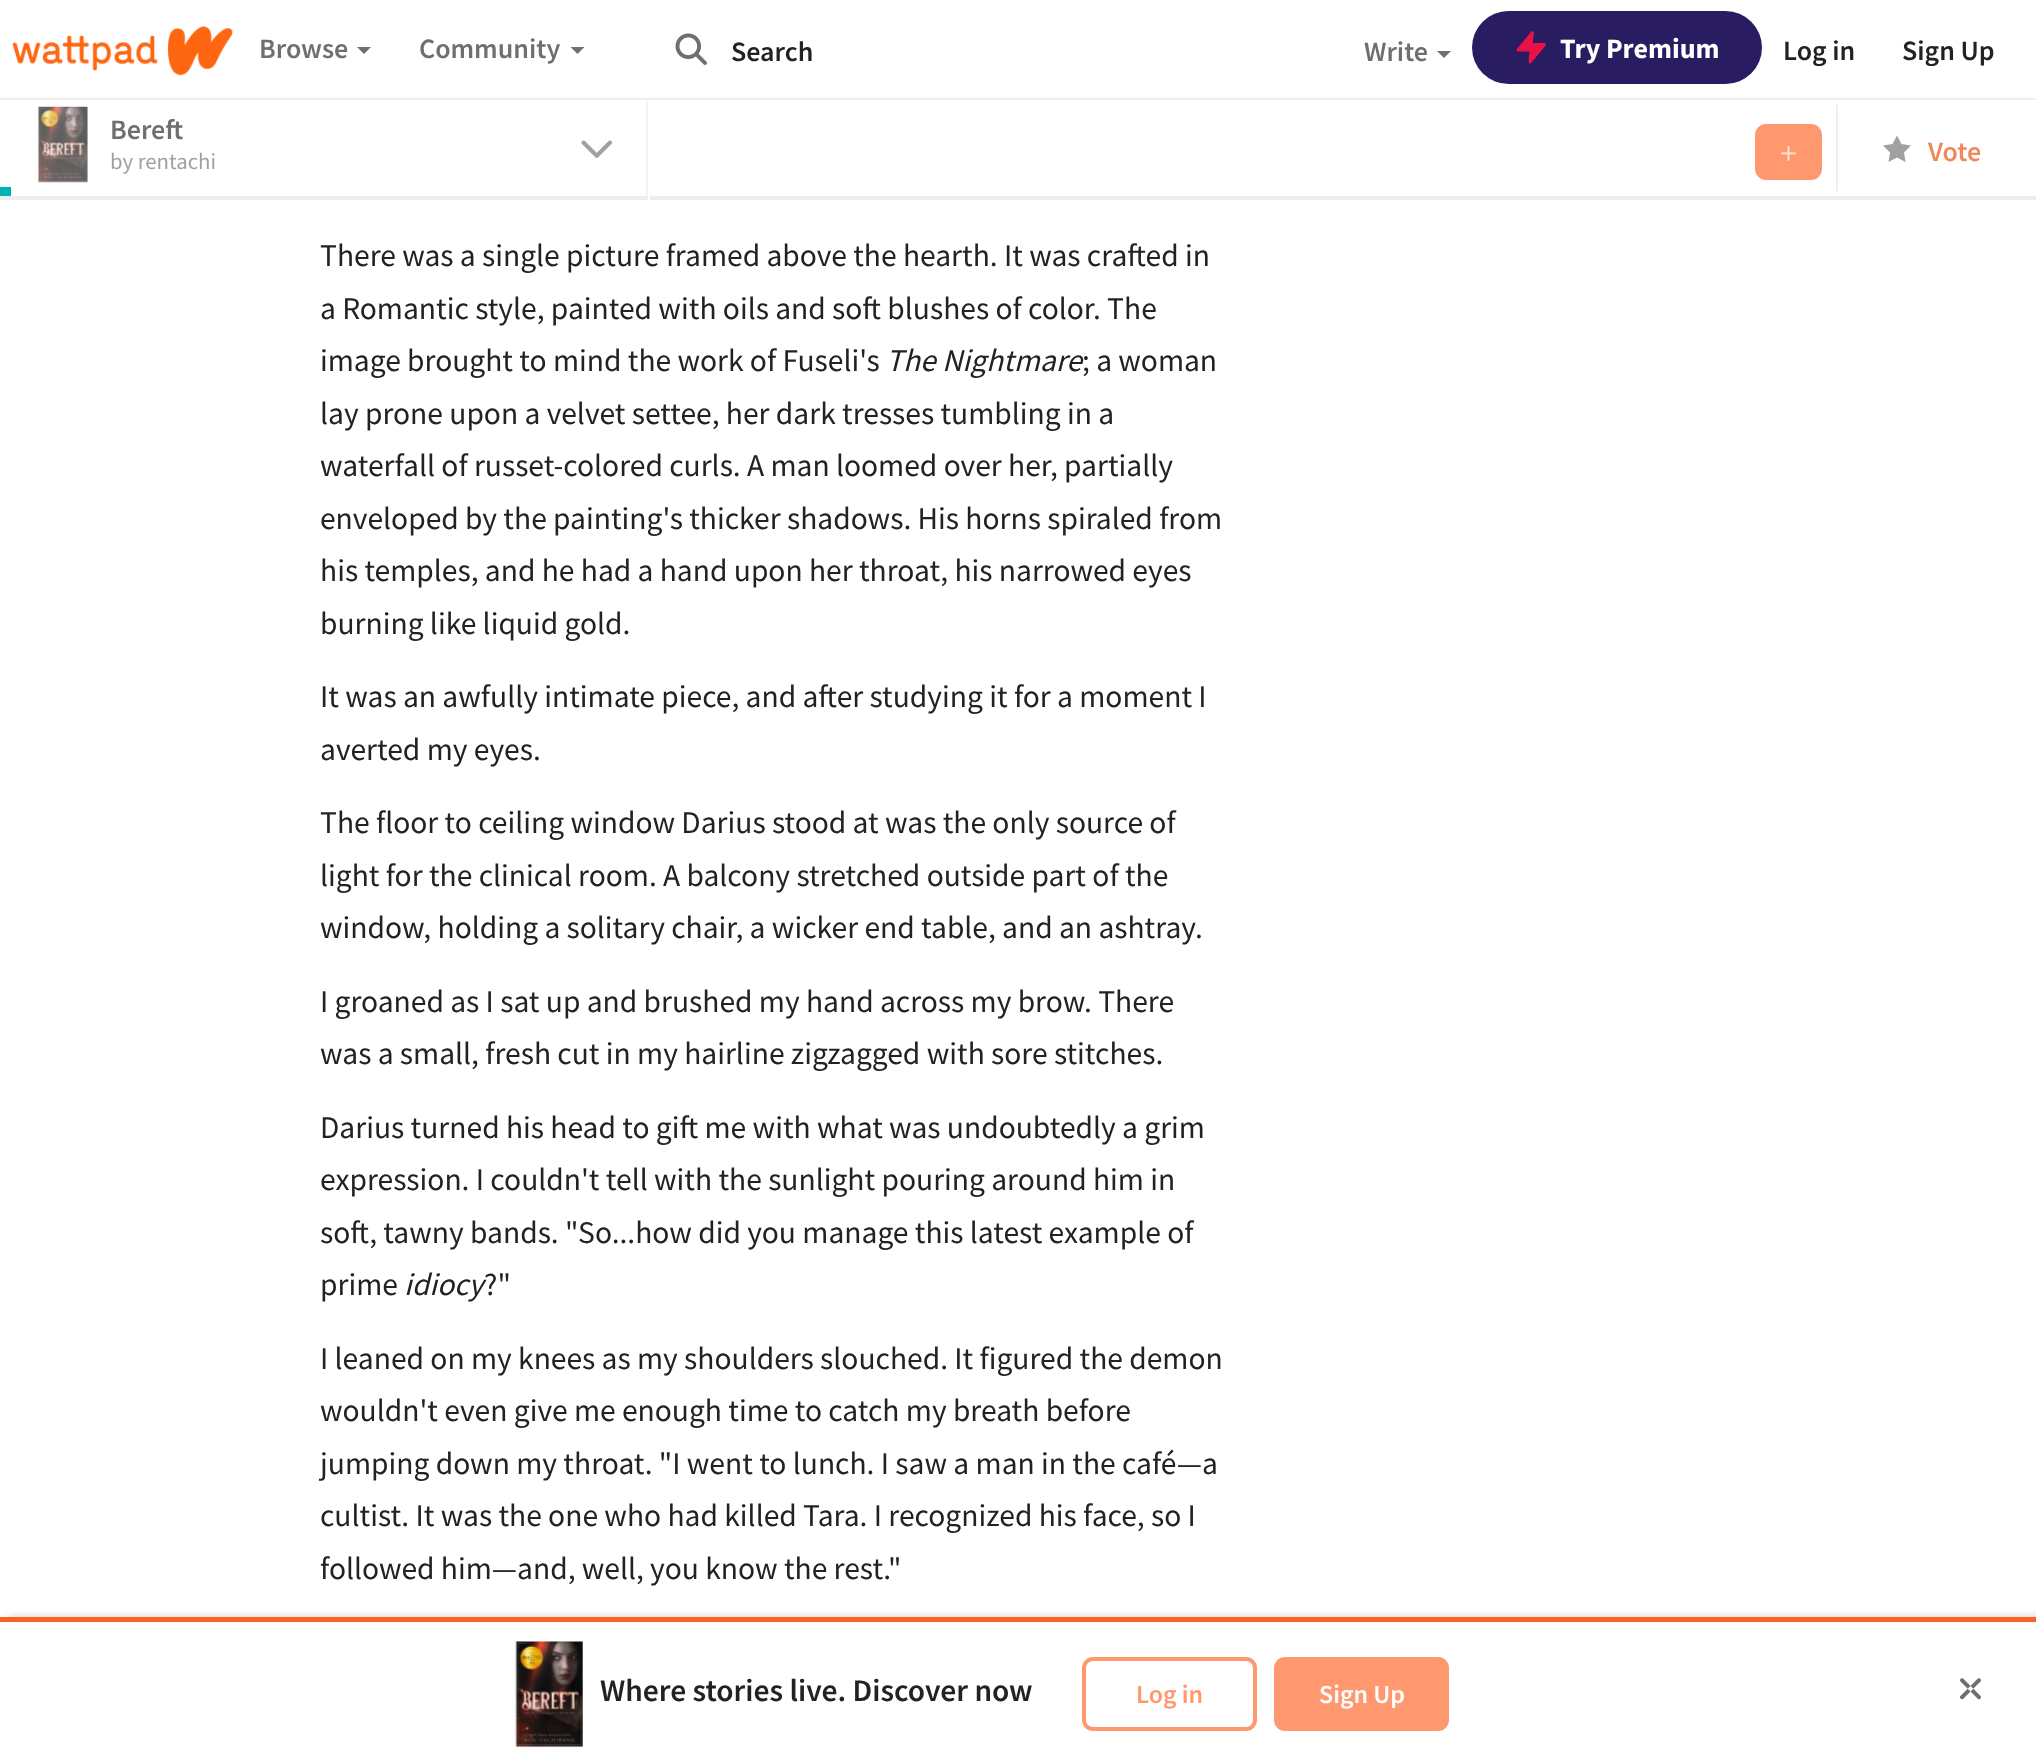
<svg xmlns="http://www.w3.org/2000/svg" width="2036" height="1752">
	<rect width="100%" height="100%" fill="#FFFFFF" />
	<rect x="0" y="196" width="2036" height="4" fill="#EEEEEE" />
	<path d="M648 94V200L646 196V98Z" fill="#EEEEEE" fill-opacity="0.65" />
	<rect x="646" y="94" width="2" height="4" fill="#FFFFFF" />
	<rect x="0" y="98" width="2036" height="2" fill="#EEEEEE" />
	<image x="12" y="26" width="221" height="50" href="assets/img1.png" />
	<text x="259" y="58" font-family="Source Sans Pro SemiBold" font-size="28" font-weight="600" fill="#6F6F6F">Browse</text>
	<path d="M357 47H371L364 54Z" fill="#6F6F6F" />
	<text x="419" y="58" font-family="Source Sans Pro SemiBold" font-size="28" font-weight="600" fill="#6F6F6F">Community</text>
	<path d="M570.5 47H584.5L577.5 54Z" fill="#6F6F6F" />
	<image x="675" y="33" width="32" height="32" href="assets/img2.png" />
	<text x="731" y="61" font-family="Source Sans Pro SemiBold" font-size="28" font-weight="600" fill="#222222">Search</text>
	<text x="1364" y="61" font-family="Source Sans Pro SemiBold" font-size="28" font-weight="600" fill="#6F6F6F">Write</text>
	<path d="M1437 51H1451L1444 58Z" fill="#6F6F6F" />
	<rect x="1472" y="11" width="290" height="73" rx="36.5" fill="#2A1C60" />
	<path d="M1532.5 32.5L1518 50H1531L1530 62L1544.5 44.5H1531Z" fill="#E81249" stroke="#E81249" stroke-width="2.9" stroke-linecap="round" stroke-linejoin="round" />
	<text x="1560" y="58" font-family="Source Sans Pro" font-size="28" font-weight="700" fill="#FFFFFF">Try Premium</text>
	<g font-family="Source Sans Pro SemiBold" font-size="28" font-weight="600" fill="#222222">
		<text x="1783" y="60">Log in</text>
		<text x="1902" y="60">Sign Up</text>
	</g>
	<rect x="648" y="196" width="2" height="4" fill="#FFFFFF" />
	<rect x="39" y="107" width="49" height="75" fill="#F4F4F4" />
	<image x="38" y="106" width="50" height="77" href="assets/img3.png" />
	<text x="110" y="139" font-family="Source Sans Pro SemiBold" font-size="28" font-weight="600" fill="#6F6F6F">Bereft</text>
	<text x="110" y="169" font-family="Source Sans Pro" font-size="22.75" fill="#A1A1A1">by rentachi</text>
	<image x="581" y="140" width="31" height="18" href="assets/img4.png" />
	<rect x="1755" y="124" width="67" height="56" rx="11" fill="#FF986F" />
	<image x="1780" y="145" width="17" height="16" href="assets/img5.png" />
	<rect x="1836" y="105" width="2" height="86" fill="#EEEEEE" />
	<path d="M1897 135.5L1901.5 144L1911 145.5L1904 152.5L1905.5 162L1897 157.5L1888.5 162L1890 152.5L1883 145.5L1892.5 144Z" fill="#A1A1A1" />
	<text x="1928" y="161" font-family="Source Sans Pro SemiBold" font-size="28" font-weight="600" fill="#EF885F">Vote</text>
	<rect x="0" y="187" width="11" height="9" fill="#00B2B2" />
	<g font-family="Source Sans Pro" font-size="31.5" fill="#222222">
		<text x="320" y="266">There was a single picture framed above the hearth. It was crafted in</text>
		<text x="320" y="319">a Romantic style, painted with oils and soft blushes of color. The</text>
		<text x="320" y="371">image brought to mind the work of Fuseli's</text>
	</g>
	<text x="886" y="371" font-family="Source Sans Pro" font-size="31.5" font-style="italic" fill="#222222">The Nightmare</text>
	<g font-family="Source Sans Pro" font-size="31.5" fill="#222222">
		<text x="1082" y="371">; a woman</text>
		<text x="320" y="424">lay prone upon a velvet settee, her dark tresses tumbling in a</text>
		<text x="320" y="476">waterfall of russet-colored curls. A man loomed over her, partially</text>
		<text x="320" y="529">enveloped by the painting's thicker shadows. His horns spiraled from</text>
		<text x="320" y="581">his temples, and he had a hand upon her throat, his narrowed eyes</text>
		<text x="320" y="634">burning like liquid gold.</text>
		<text x="320" y="707">It was an awfully intimate piece, and after studying it for a moment I</text>
		<text x="320" y="760">averted my eyes.</text>
		<text x="320" y="833">The floor to ceiling window Darius stood at was the only source of</text>
		<text x="320" y="886">light for the clinical room. A balcony stretched outside part of the</text>
		<text x="320" y="938">window, holding a solitary chair, a wicker end table, and an ashtray.</text>
		<text x="320" y="1012">I groaned as I sat up and brushed my hand across my brow. There</text>
		<text x="320" y="1064">was a small, fresh cut in my hairline zigzagged with sore stitches.</text>
		<text x="320" y="1138">Darius turned his head to gift me with what was undoubtedly a grim</text>
		<text x="320" y="1190">expression. I couldn't tell with the sunlight pouring around him in</text>
		<text x="320" y="1243">soft, tawny bands. "So...how did you manage this latest example of</text>
		<text x="320" y="1295">prime</text>
	</g>
	<text x="404" y="1295" font-family="Source Sans Pro" font-size="31.5" font-style="italic" fill="#222222">idiocy</text>
	<g font-family="Source Sans Pro" font-size="31.5" fill="#222222">
		<text x="484" y="1295">?"</text>
		<text x="320" y="1369">I leaned on my knees as my shoulders slouched. It figured the demon</text>
		<text x="320" y="1421">wouldn't even give me enough time to catch my breath before</text>
		<text x="320" y="1474">jumping down my throat. "I went to lunch. I saw a man in the café—a</text>
		<text x="320" y="1526">cultist. It was the one who had killed Tara. I recognized his face, so I</text>
		<text x="320" y="1579">followed him—and, well, you know the rest."</text>
	</g>
	<rect x="9" y="1617" width="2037" height="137" fill="#000000" fill-opacity="0.2" filter="blur(4.5px)" />
	<rect x="2" y="1622" width="2034" height="130" fill="#FFFFFF" />
	<rect x="0" y="1617" width="2036" height="5" fill="#FF6122" />
	<image x="515" y="1641" width="68" height="107" href="assets/img6.png" />
	<text x="600" y="1701" font-family="Source Sans Pro SemiBold" font-size="31.5" font-weight="600" fill="#222222">Where stories live. Discover now</text>
	<rect x="1084" y="1659" width="171" height="70" rx="9" fill="none" stroke="#FF986F" stroke-width="4" />
	<text x="1136" y="1703" font-family="Source Sans Pro SemiBold" font-size="26" font-weight="600" fill="#FF986F">Log in</text>
	<rect x="1274" y="1657" width="175" height="74" rx="11" fill="#FF986F" />
	<text x="1319" y="1703" font-family="Source Sans Pro SemiBold" font-size="26" font-weight="600" fill="#FFFFFF">Sign Up</text>
	<image x="1960" y="1678" width="21" height="22" href="assets/img7.png" />
</svg>
